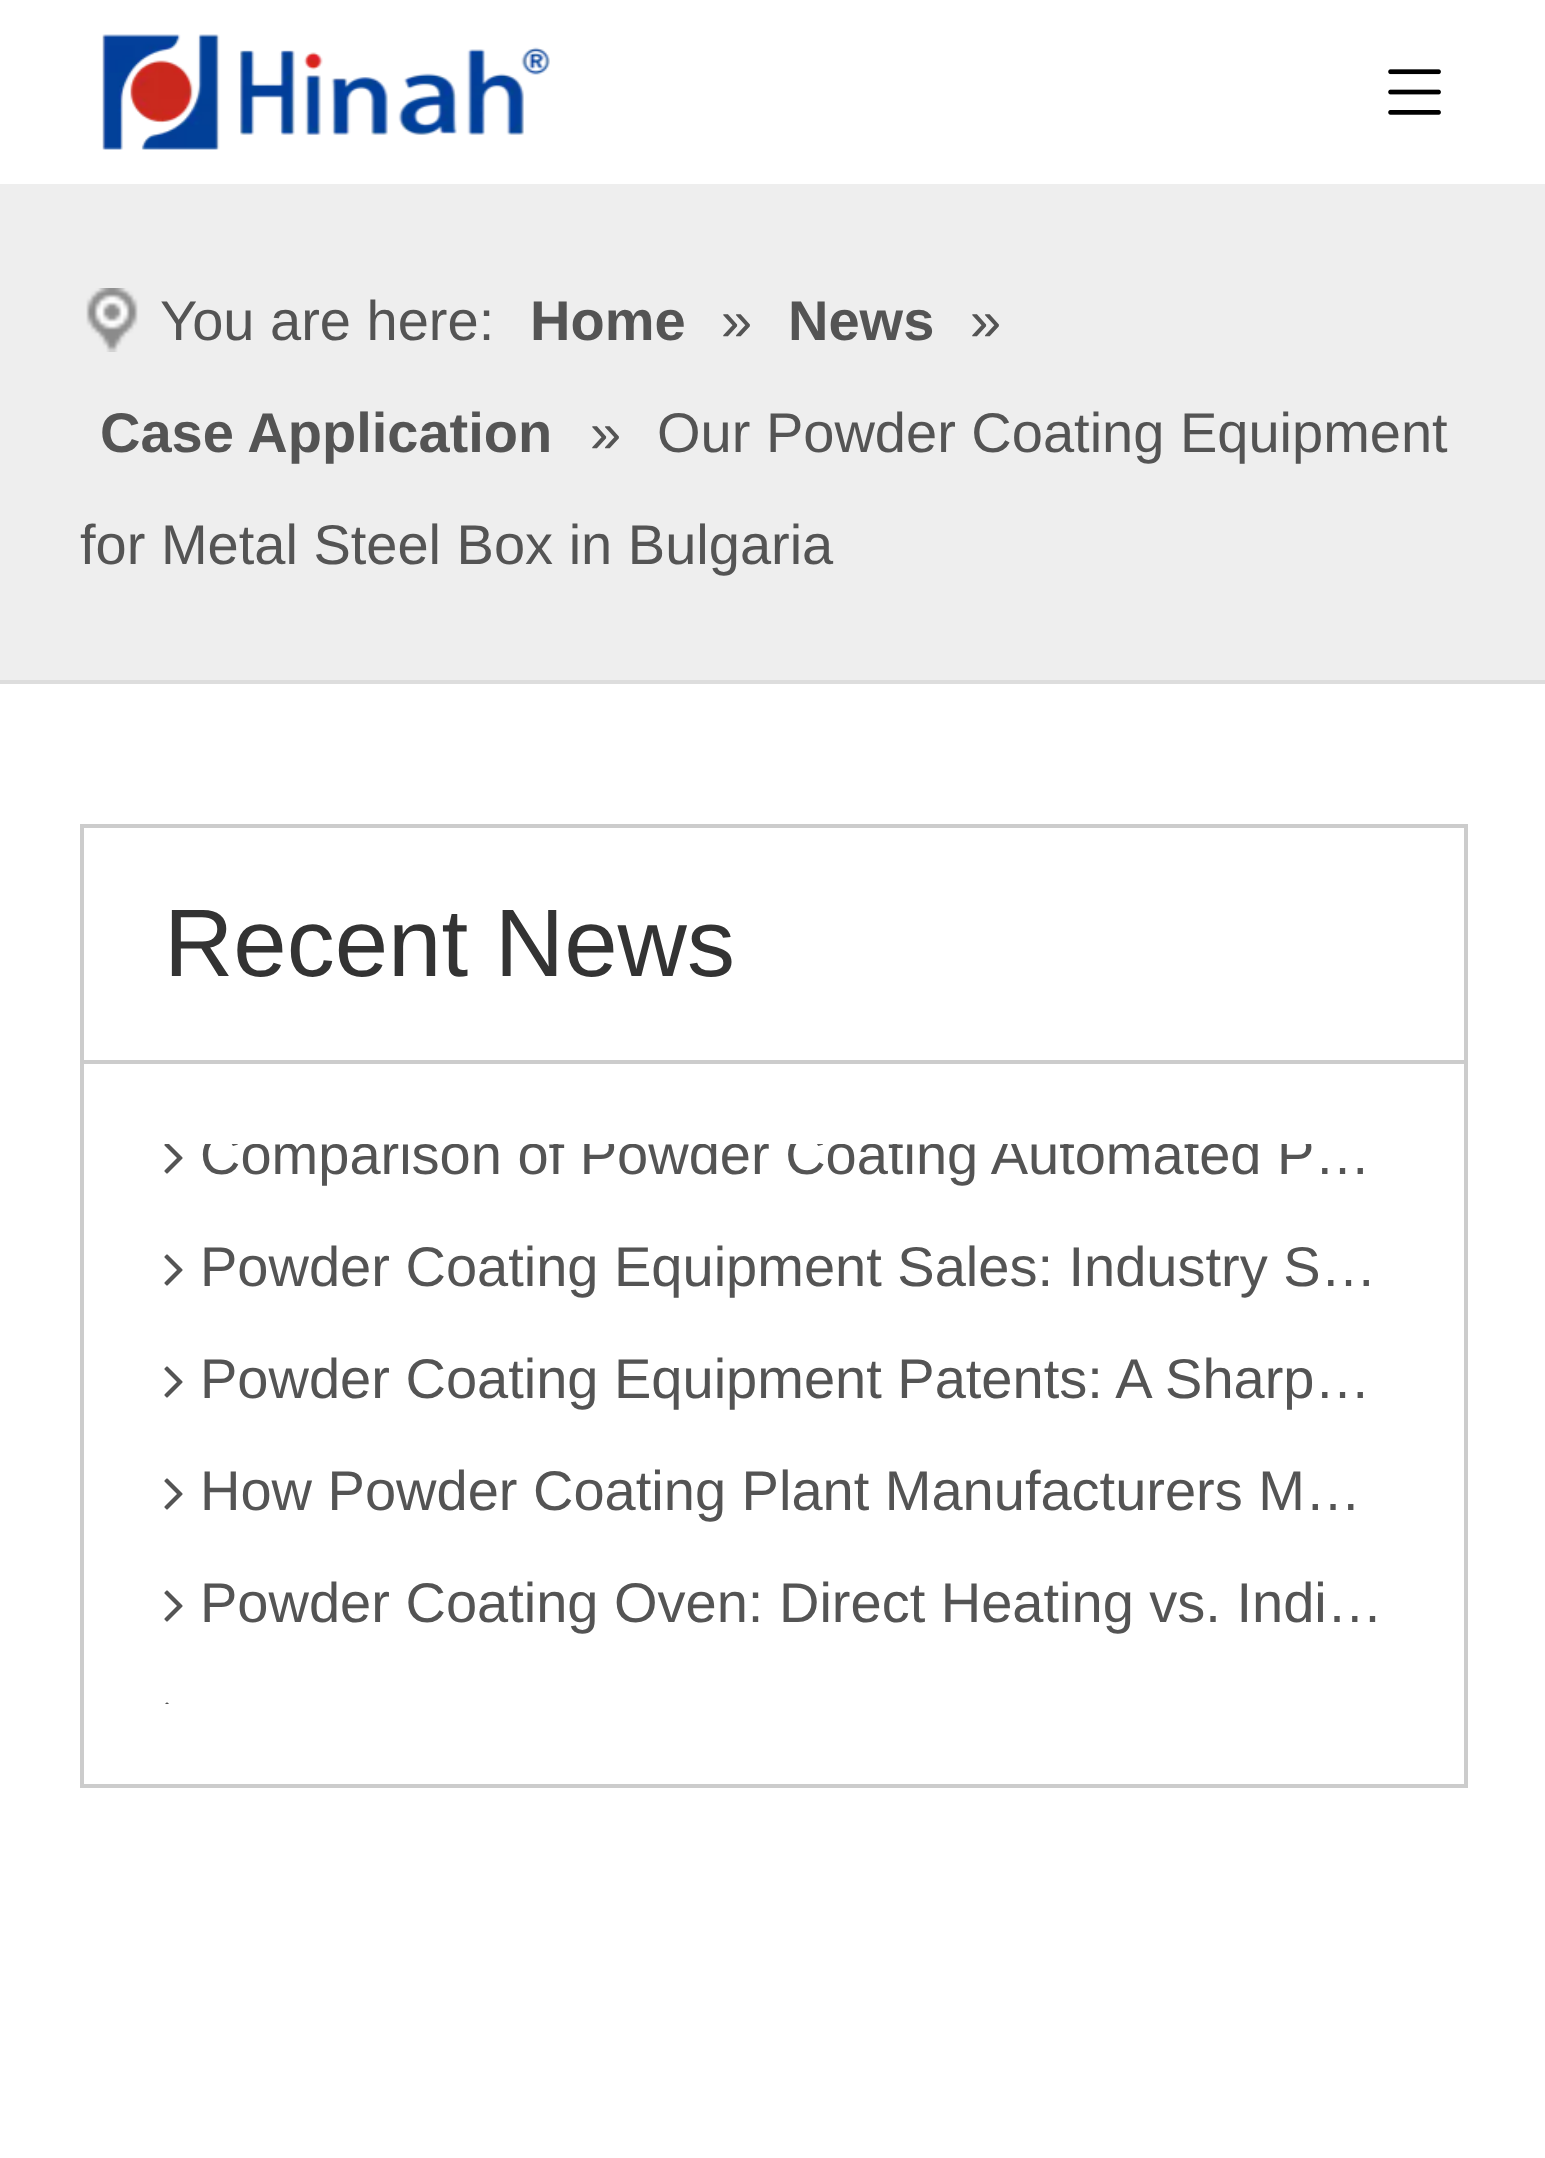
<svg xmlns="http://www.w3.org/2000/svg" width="1545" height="2158">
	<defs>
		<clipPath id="clip1"><rect x="164" y="1144" width="1220" height="68" /></clipPath>
	</defs>
	<rect width="100%" height="100%" fill="#FFFFFF" />
	<image x="102" y="34" width="448" height="116" href="assets/img1.png" />
	<image x="1388" y="69" width="53" height="46" href="assets/img2.png" />
	<rect x="0" y="184" width="1545" height="496" fill="#EEEEEE" />
	<rect x="0" y="680" width="1545" height="4" fill="#DDDDDD" />
	<image x="86" y="288" width="52" height="64" href="assets/img3.png" />
	<text x="160" y="340" font-family="Liberation Sans" font-size="56" fill="#545454">You are here:</text>
	<text x="530" y="340" font-family="Liberation Sans" font-size="56" font-weight="700" fill="#545454">Home</text>
	<text x="721" y="340" font-family="Liberation Sans" font-size="56" fill="#545454">»</text>
	<text x="788" y="340" font-family="Liberation Sans" font-size="56" font-weight="700" fill="#545454">News</text>
	<text x="970" y="340" font-family="Liberation Sans" font-size="56" fill="#545454">»</text>
	<text x="100" y="452" font-family="Liberation Sans" font-size="56" font-weight="700" fill="#545454">Case Application</text>
	<g font-family="Liberation Sans" font-size="56" fill="#545454">
		<text x="590" y="452">»</text>
		<text x="657" y="452">Our Powder Coating Equipment</text>
		<text x="80" y="564">for Metal Steel Box in Bulgaria</text>
	</g>
	<rect x="82" y="826" width="1384" height="960" fill="none" stroke="#CCCCCC" stroke-width="4" />
	<rect x="84" y="1060" width="1380" height="4" fill="#CCCCCC" />
	<text x="164" y="976" font-family="Liberation Sans" font-size="96" fill="#333333">Recent News</text>
	<image x="164" y="1144" width="19" height="30" href="assets/img4.png" />
	<g clip-path="url(#clip1)">
		<text x="200" y="1174" font-family="Liberation Sans" font-size="56" fill="#545454">Comparison of Powder Coating Automated P…</text>
	</g>
	<image x="164" y="1254" width="19" height="32" href="assets/img5.png" />
	<text x="200" y="1286" font-family="Liberation Sans" font-size="56" fill="#545454">Powder Coating Equipment Sales: Industry S…</text>
	<image x="164" y="1366" width="19" height="32" href="assets/img5.png" />
	<text x="200" y="1398" font-family="Liberation Sans" font-size="56" fill="#545454">Powder Coating Equipment Patents: A Sharp…</text>
	<image x="164" y="1478" width="19" height="32" href="assets/img5.png" />
	<text x="200" y="1510" font-family="Liberation Sans" font-size="56" fill="#545454">How Powder Coating Plant Manufacturers M…</text>
	<image x="164" y="1590" width="19" height="32" href="assets/img5.png" />
	<text x="200" y="1622" font-family="Liberation Sans" font-size="56" fill="#545454">Powder Coating Oven: Direct Heating vs. Indi…</text>
	<image x="165" y="1702" width="4" height="2" href="assets/img6.png" />
</svg>
